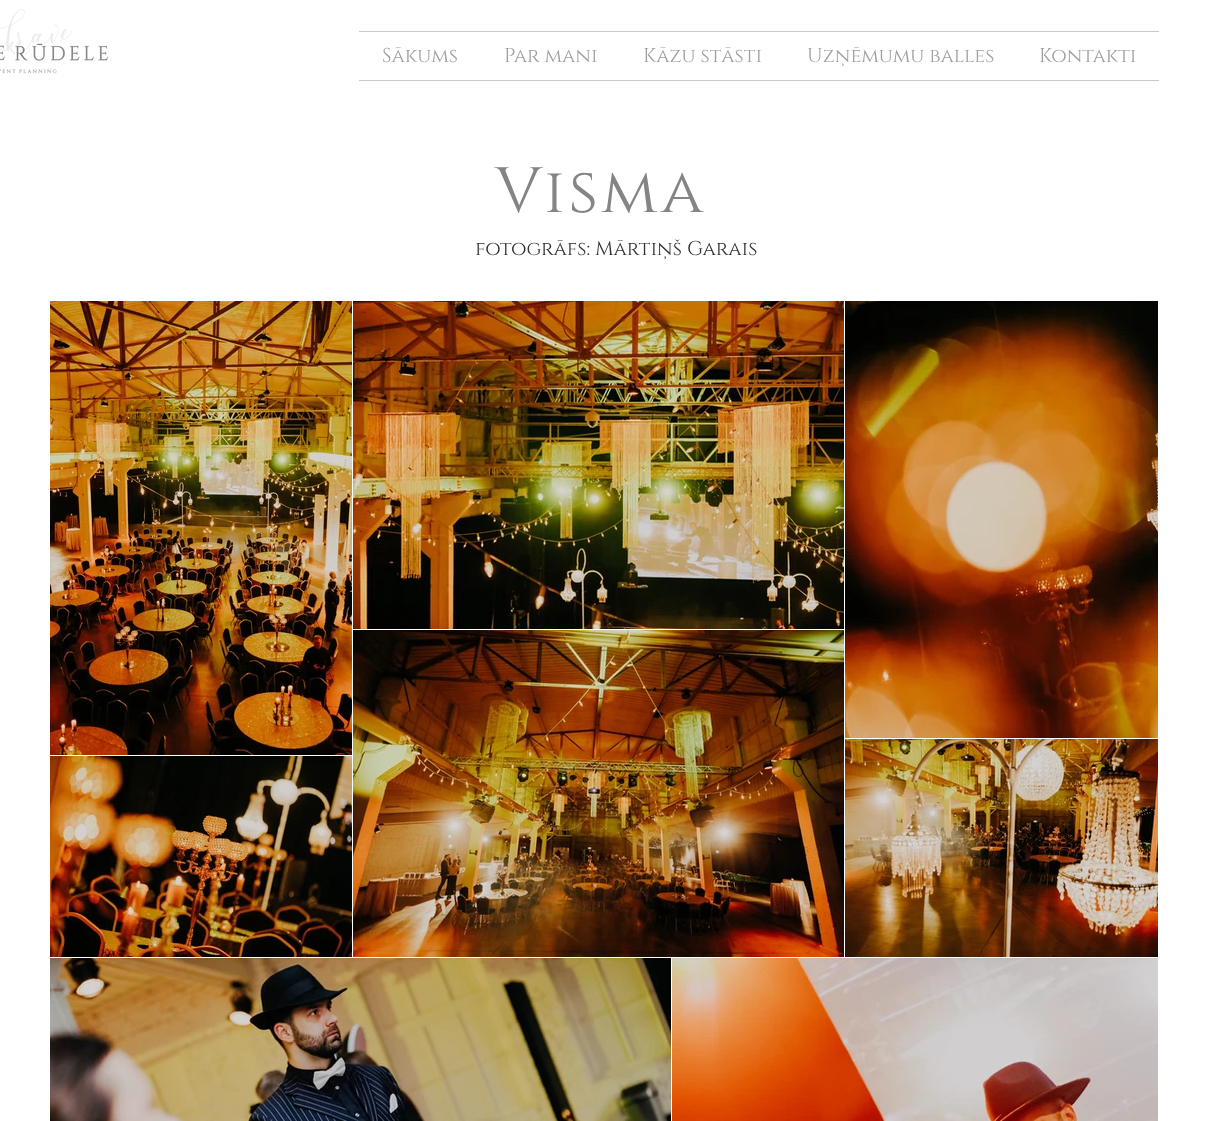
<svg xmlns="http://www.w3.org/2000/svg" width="1207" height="1121">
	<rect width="100%" height="100%" fill="#FFFFFF" />
	<image x="0" y="9" width="108" height="65" href="assets/img1.png" />
	<rect x="359" y="31" width="800" height="1" fill="#CACACA" />
	<rect x="359" y="80" width="800" height="1" fill="#CACACA" />
	<g font-family="Cinzel" font-size="20" fill="#9E9E9E">
		<text x="382" y="62">Sākums</text>
		<text x="504" y="62">Par mani</text>
		<text x="643" y="62">Kāzu stāsti</text>
		<text x="807" y="62">Uzņēmumu balles</text>
		<text x="1039" y="62">Kontakti</text>
	</g>
	<text x="495" y="212" font-family="Cinzel" font-size="64" letter-spacing="3.25" fill="#858585">Visma</text>
	<text x="475" y="255" font-family="Cinzel" font-size="20" fill="#303131">fotogrāfs: Mārtiņš Garais</text>
	<image x="50" y="301" width="302" height="454" href="assets/img2.png" />
	<image x="353" y="301" width="491" height="328" href="assets/img3.png" />
	<image x="845" y="301" width="313" height="437" href="assets/img4.png" />
	<image x="50" y="756" width="302" height="201" href="assets/img5.png" />
	<image x="353" y="630" width="491" height="327" href="assets/img6.png" />
	<image x="845" y="739" width="313" height="218" href="assets/img7.png" />
	<image x="50" y="958" width="621" height="163" href="assets/img8.png" />
	<image x="672" y="958" width="486" height="163" href="assets/img9.png" />
</svg>
